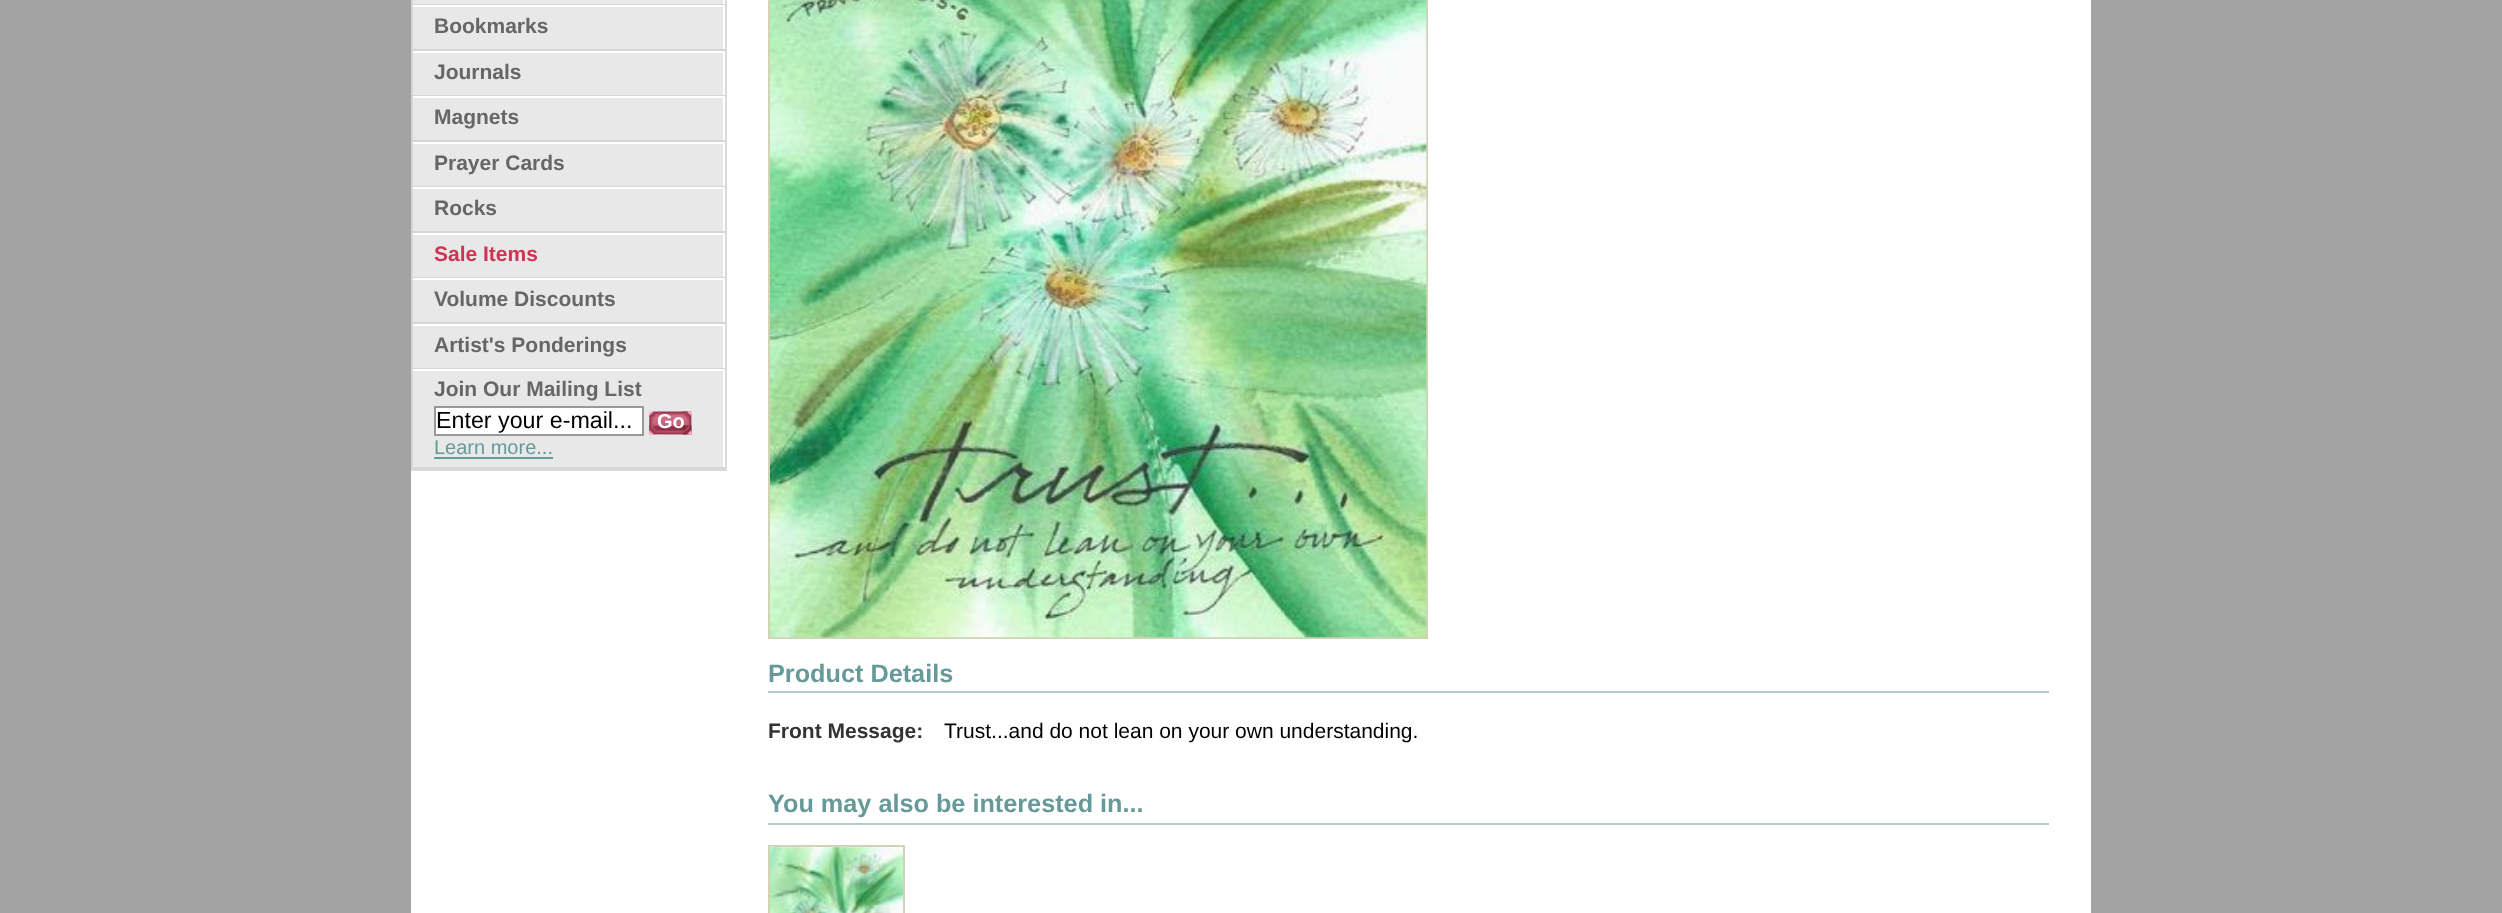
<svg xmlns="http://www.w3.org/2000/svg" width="2502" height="913">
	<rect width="100%" height="100%" fill="#A3A3A3" />
	<rect x="411" y="0" width="1680" height="913" fill="#FFFFFF" />
	<rect x="413" y="0" width="310" height="467" fill="#E8E8E8" />
	<rect x="725" y="0" width="2" height="471" fill="#D9D9D9" />
	<rect x="411" y="469" width="315" height="2" fill="#D9D9D9" />
	<rect x="411" y="4" width="314" height="1" fill="#D5D5D5" />
	<rect x="411" y="0" width="2" height="5" fill="#D5D5D5" />
	<rect x="411" y="5" width="314" height="2" fill="#FFFFFF" />
	<rect x="411" y="49" width="314" height="2" fill="#D5D5D5" />
	<rect x="411" y="5" width="2" height="46" fill="#D5D5D5" />
	<text x="434" y="33" font-family="Liberation Sans" font-size="21" font-weight="700" fill="#666666">Bookmarks</text>
	<rect x="411" y="51" width="314" height="2" fill="#FFFFFF" />
	<rect x="411" y="95" width="314" height="1" fill="#D5D5D5" />
	<rect x="411" y="51" width="2" height="45" fill="#D5D5D5" />
	<text x="434" y="79" font-family="Liberation Sans" font-size="21" font-weight="700" fill="#666666">Journals</text>
	<rect x="411" y="96" width="314" height="2" fill="#FFFFFF" />
	<rect x="411" y="140" width="314" height="2" fill="#D5D5D5" />
	<rect x="411" y="96" width="2" height="46" fill="#D5D5D5" />
	<text x="434" y="124" font-family="Liberation Sans" font-size="21" font-weight="700" fill="#666666">Magnets</text>
	<rect x="411" y="142" width="314" height="2" fill="#FFFFFF" />
	<rect x="411" y="186" width="314" height="1" fill="#D5D5D5" />
	<rect x="411" y="142" width="2" height="45" fill="#D5D5D5" />
	<text x="434" y="170" font-family="Liberation Sans" font-size="21" font-weight="700" fill="#666666">Prayer Cards</text>
	<rect x="411" y="187" width="314" height="2" fill="#FFFFFF" />
	<rect x="411" y="231" width="314" height="2" fill="#D5D5D5" />
	<rect x="411" y="187" width="2" height="46" fill="#D5D5D5" />
	<text x="434" y="215" font-family="Liberation Sans" font-size="21" font-weight="700" fill="#666666">Rocks</text>
	<rect x="411" y="233" width="314" height="2" fill="#FFFFFF" />
	<rect x="411" y="277" width="314" height="1" fill="#D5D5D5" />
	<rect x="411" y="233" width="2" height="45" fill="#D5D5D5" />
	<text x="434" y="261" font-family="Liberation Sans" font-size="21" font-weight="700" fill="#CF3353">Sale Items</text>
	<rect x="411" y="278" width="314" height="2" fill="#FFFFFF" />
	<rect x="411" y="322" width="314" height="2" fill="#D5D5D5" />
	<rect x="411" y="278" width="2" height="46" fill="#D5D5D5" />
	<text x="434" y="306" font-family="Liberation Sans" font-size="21" font-weight="700" fill="#666666">Volume Discounts</text>
	<rect x="411" y="324" width="314" height="2" fill="#FFFFFF" />
	<rect x="411" y="368" width="314" height="1" fill="#D5D5D5" />
	<rect x="411" y="324" width="2" height="45" fill="#D5D5D5" />
	<text x="434" y="352" font-family="Liberation Sans" font-size="21" font-weight="700" fill="#666666">Artist's Ponderings</text>
	<rect x="411" y="369" width="314" height="2" fill="#FFFFFF" />
	<rect x="411" y="467" width="314" height="2" fill="#D5D5D5" />
	<rect x="411" y="369" width="2" height="100" fill="#D5D5D5" />
	<text x="434" y="396" font-family="Liberation Sans" font-size="21" font-weight="700" fill="#666666">Join Our Mailing List</text>
	<rect x="435" y="407" width="208" height="28" fill="#FFFFFF" stroke="#999999" stroke-width="2" />
	<text x="436" y="428" font-family="Liberation Sans" font-size="23.25" fill="#000000">Enter your e-mail...</text>
	<image x="649" y="411" width="43" height="24" href="assets/img1.png" />
	<image x="682" y="411" width="10" height="24" href="assets/img2.png" />
	<image x="649" y="425" width="43" height="10" href="assets/img3.png" />
	<image x="682" y="425" width="10" height="10" href="assets/img4.png" />
	<text x="657" y="428" font-family="Liberation Sans" font-size="20" font-weight="700" fill="#FFFFFF">Go</text>
	<text x="434" y="454" font-family="Liberation Sans" font-size="20" fill="#669999">Learn more...</text>
	<rect x="434" y="457" width="119" height="2" fill="#669999" />
	<rect x="769" y="-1" width="658" height="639" fill="none" stroke="#D1D3B5" stroke-width="2" />
	<image x="770" y="0" width="657" height="638" href="assets/img5.png" />
	<rect x="768" y="691" width="1281" height="2" fill="#B2CCCC" />
	<text x="768" y="682" font-family="Liberation Sans" font-size="25.25" font-weight="700" fill="#669999">Product Details</text>
	<text x="768" y="738" font-family="Liberation Sans" font-size="21" font-weight="700" fill="#333333">Front Message:</text>
	<text x="944" y="738" font-family="Liberation Sans" font-size="21" fill="#000000">Trust...and do not lean on your own understanding.</text>
	<rect x="768" y="823" width="1281" height="2" fill="#B2CCCC" />
	<text x="768" y="812" font-family="Liberation Sans" font-size="25.25" font-weight="700" fill="#669999">You may also be interested in...</text>
	<rect x="769" y="846" width="135" height="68" fill="none" stroke="#D1D3B5" stroke-width="2" />
	<image x="770" y="847" width="133" height="66" href="assets/img6.png" />
</svg>
